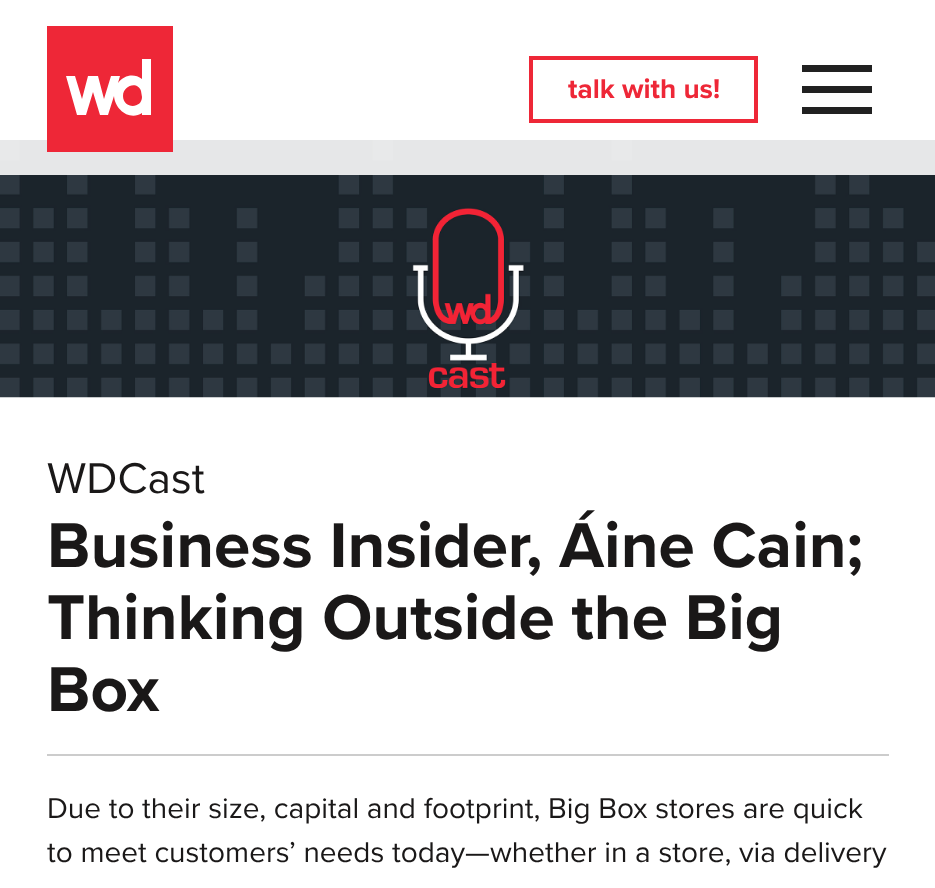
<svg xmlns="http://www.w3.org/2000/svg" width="935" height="888">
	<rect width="100%" height="100%" fill="#FFFFFF" />
	<image x="0" y="140" width="935" height="258" href="assets/img1.png" />
	<rect x="0" y="140" width="935" height="35" fill="#FDFDFD" fill-opacity="0.9" />
	<rect x="47" y="26" width="126" height="126" fill="#EE2737" />
	<path d="M142 97C142 109 123 109 123 96C123 85 138 81 141 91ZM142 59V79C134 73 124 75 118 83L120 76H111L104 99L98 76H88L82 99L75 76H66L77 115H86L93 92L100 115H108L114 96C115 110 130 121 142 113V115H151V59Z" fill="#FFFFFF" />
	<rect x="531" y="58" width="225" height="63" fill="none" stroke="#EE2737" stroke-width="4" />
	<text x="568" y="98" font-family="Proxima Nova" font-size="28" font-weight="700" fill="#EE2737">talk with us!</text>
	<rect x="802" y="65" width="70" height="7" fill="#212121" />
	<rect x="802" y="86" width="70" height="7" fill="#212121" />
	<rect x="802" y="107" width="70" height="7" fill="#212121" />
	<text x="47" y="493" font-family="Proxima Nova" font-size="44.5" fill="#1A1818">WDCast</text>
	<g font-family="Proxima Nova" font-size="65.5" font-weight="700" fill="#1A1818">
		<text x="47" y="567">Business Insider, Áine Cain;</text>
		<text x="47" y="639">Thinking Outside the Big</text>
		<text x="47" y="711">Box</text>
	</g>
	<rect x="47" y="754" width="842" height="2" fill="#CCCCCC" />
	<g font-family="Proxima Nova" font-size="29.75" fill="#1A1818">
		<text x="47" y="818">Due to their size, capital and footprint, Big Box stores are quick</text>
		<text x="47" y="862">to meet customers’ needs today—whether in a store, via delivery</text>
	</g>
</svg>
